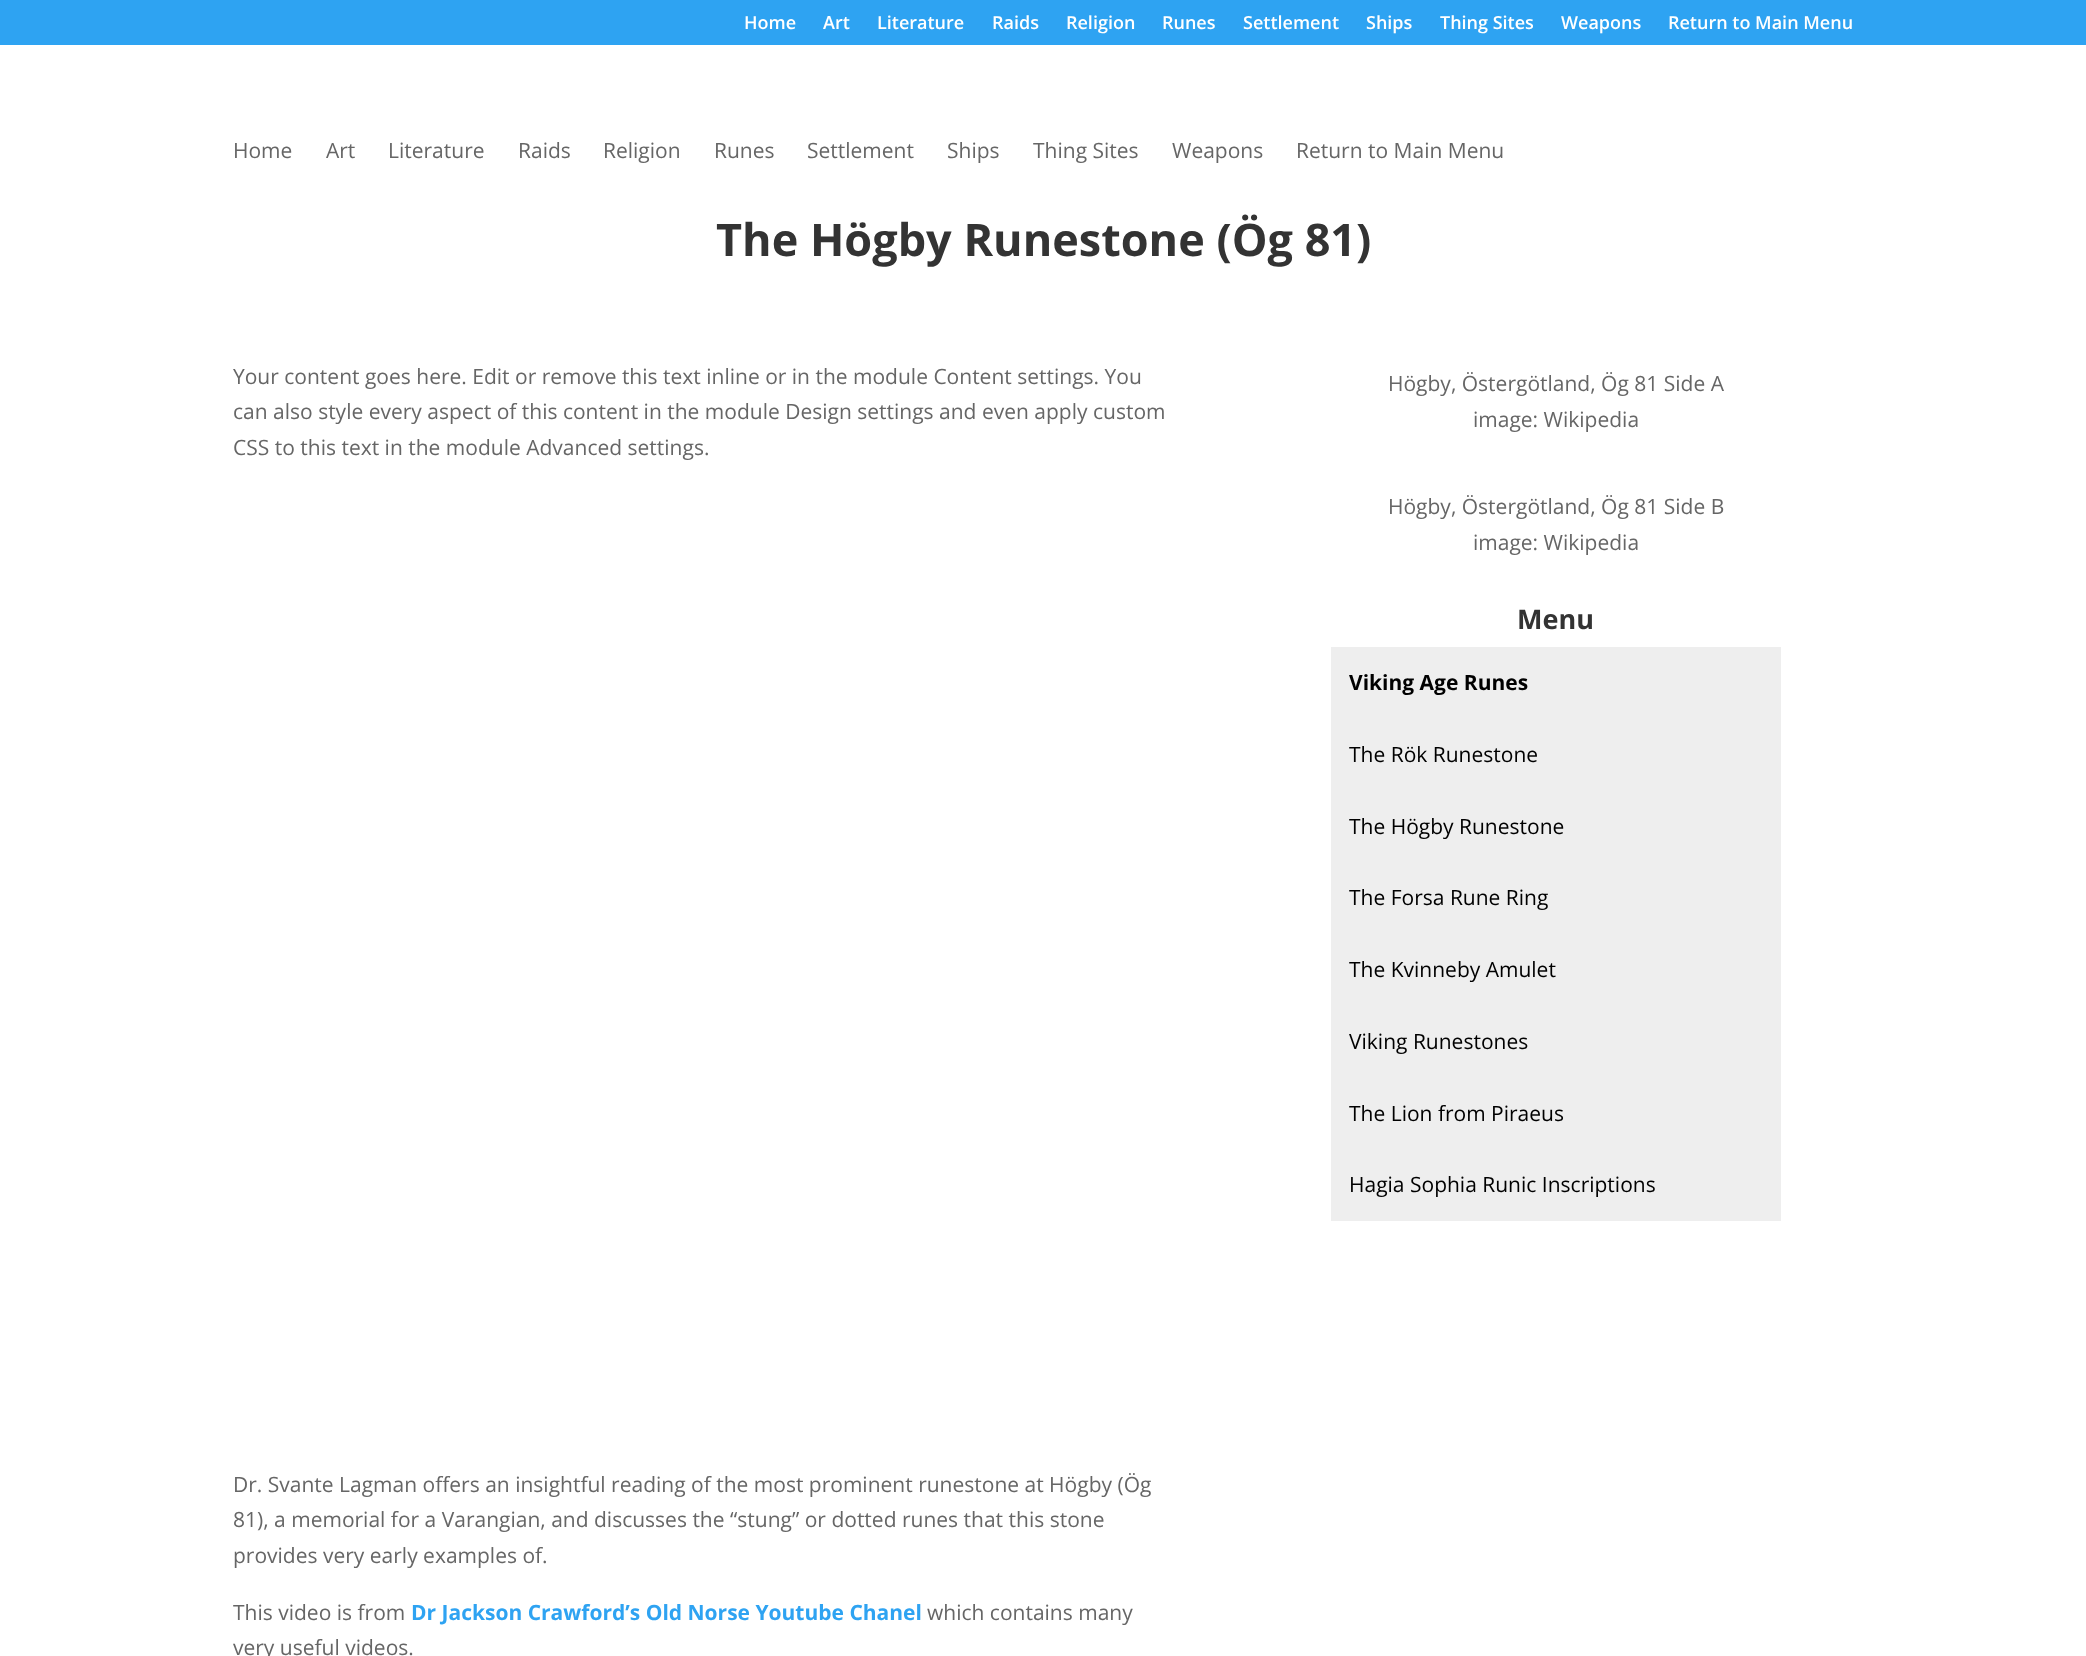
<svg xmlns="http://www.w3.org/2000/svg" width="2086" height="1656">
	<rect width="100%" height="100%" fill="#FFFFFF" />
	<rect x="0" y="0" width="2086" height="45" fill="#2EA3F2" />
	<g font-family="Open Sans" font-size="18" font-weight="600" fill="#FFFFFF">
		<text x="744" y="29">Home</text>
		<text x="823" y="29">Art</text>
		<text x="877" y="29">Literature</text>
		<text x="992" y="29">Raids</text>
		<text x="1066" y="29">Religion</text>
		<text x="1162" y="29">Runes</text>
		<text x="1243" y="29">Settlement</text>
		<text x="1366" y="29">Ships</text>
		<text x="1440" y="29">Thing Sites</text>
		<text x="1561" y="29">Weapons</text>
		<text x="1668" y="29">Return to Main Menu</text>
	</g>
	<g font-family="Open Sans" font-size="21" fill="#666666">
		<text x="233" y="158">Home</text>
		<text x="326" y="158">Art</text>
		<text x="388" y="158">Literature</text>
		<text x="518" y="158">Raids</text>
		<text x="603" y="158">Religion</text>
		<text x="714" y="158">Runes</text>
		<text x="807" y="158">Settlement</text>
		<text x="947" y="158">Ships</text>
		<text x="1033" y="158">Thing Sites</text>
		<text x="1172" y="158">Weapons</text>
		<text x="1296" y="158">Return to Main Menu</text>
	</g>
	<text x="716" y="256" font-family="Open Sans" font-size="45" font-weight="700" fill="#333333">The Högby Runestone (Ög 81)</text>
	<g font-family="Open Sans" font-size="21" fill="#666666">
		<text x="233" y="384">Your content goes here. Edit or remove this text inline or in the module Content settings. You</text>
		<text x="233" y="419">can also style every aspect of this content in the module Design settings and even apply custom</text>
		<text x="233" y="455">CSS to this text in the module Advanced settings.</text>
		<text x="233" y="1492">Dr. Svante Lagman offers an insightful reading of the most prominent runestone at Högby (Ög</text>
		<text x="233" y="1527">81), a memorial for a Varangian, and discusses the “stung” or dotted runes that this stone</text>
		<text x="233" y="1563">provides very early examples of.</text>
		<text x="233" y="1620">This video is from</text>
	</g>
	<text x="411" y="1620" font-family="Open Sans" font-size="21" font-weight="700" fill="#2EA3F2">Dr Jackson Crawford’s Old Norse Youtube Chanel</text>
	<g font-family="Open Sans" font-size="21" fill="#666666">
		<text x="927" y="1620">which contains many</text>
		<text x="233" y="1655">very useful videos.</text>
		<text x="1388" y="391">Högby, Östergötland, Ög 81 Side A</text>
		<text x="1473" y="427">image: Wikipedia</text>
		<text x="1388" y="514">Högby, Östergötland, Ög 81 Side B</text>
		<text x="1473" y="550">image: Wikipedia</text>
	</g>
	<text x="1517" y="629" font-family="Open Sans" font-size="27" font-weight="700" fill="#333333">Menu</text>
	<rect x="1331" y="647" width="450" height="574" fill="#EEEEEE" />
	<text x="1349" y="690" font-family="Open Sans" font-size="21" font-weight="700" fill="#000000">Viking Age Runes</text>
	<g font-family="Open Sans" font-size="21" fill="#000000">
		<text x="1349" y="762">The Rök Runestone</text>
		<text x="1349" y="834">The Högby Runestone</text>
		<text x="1349" y="905">The Forsa Rune Ring</text>
		<text x="1349" y="977">The Kvinneby Amulet</text>
		<text x="1349" y="1049">Viking Runestones</text>
		<text x="1349" y="1121">The Lion from Piraeus</text>
		<text x="1349" y="1192">Hagia Sophia Runic Inscriptions</text>
	</g>
</svg>
